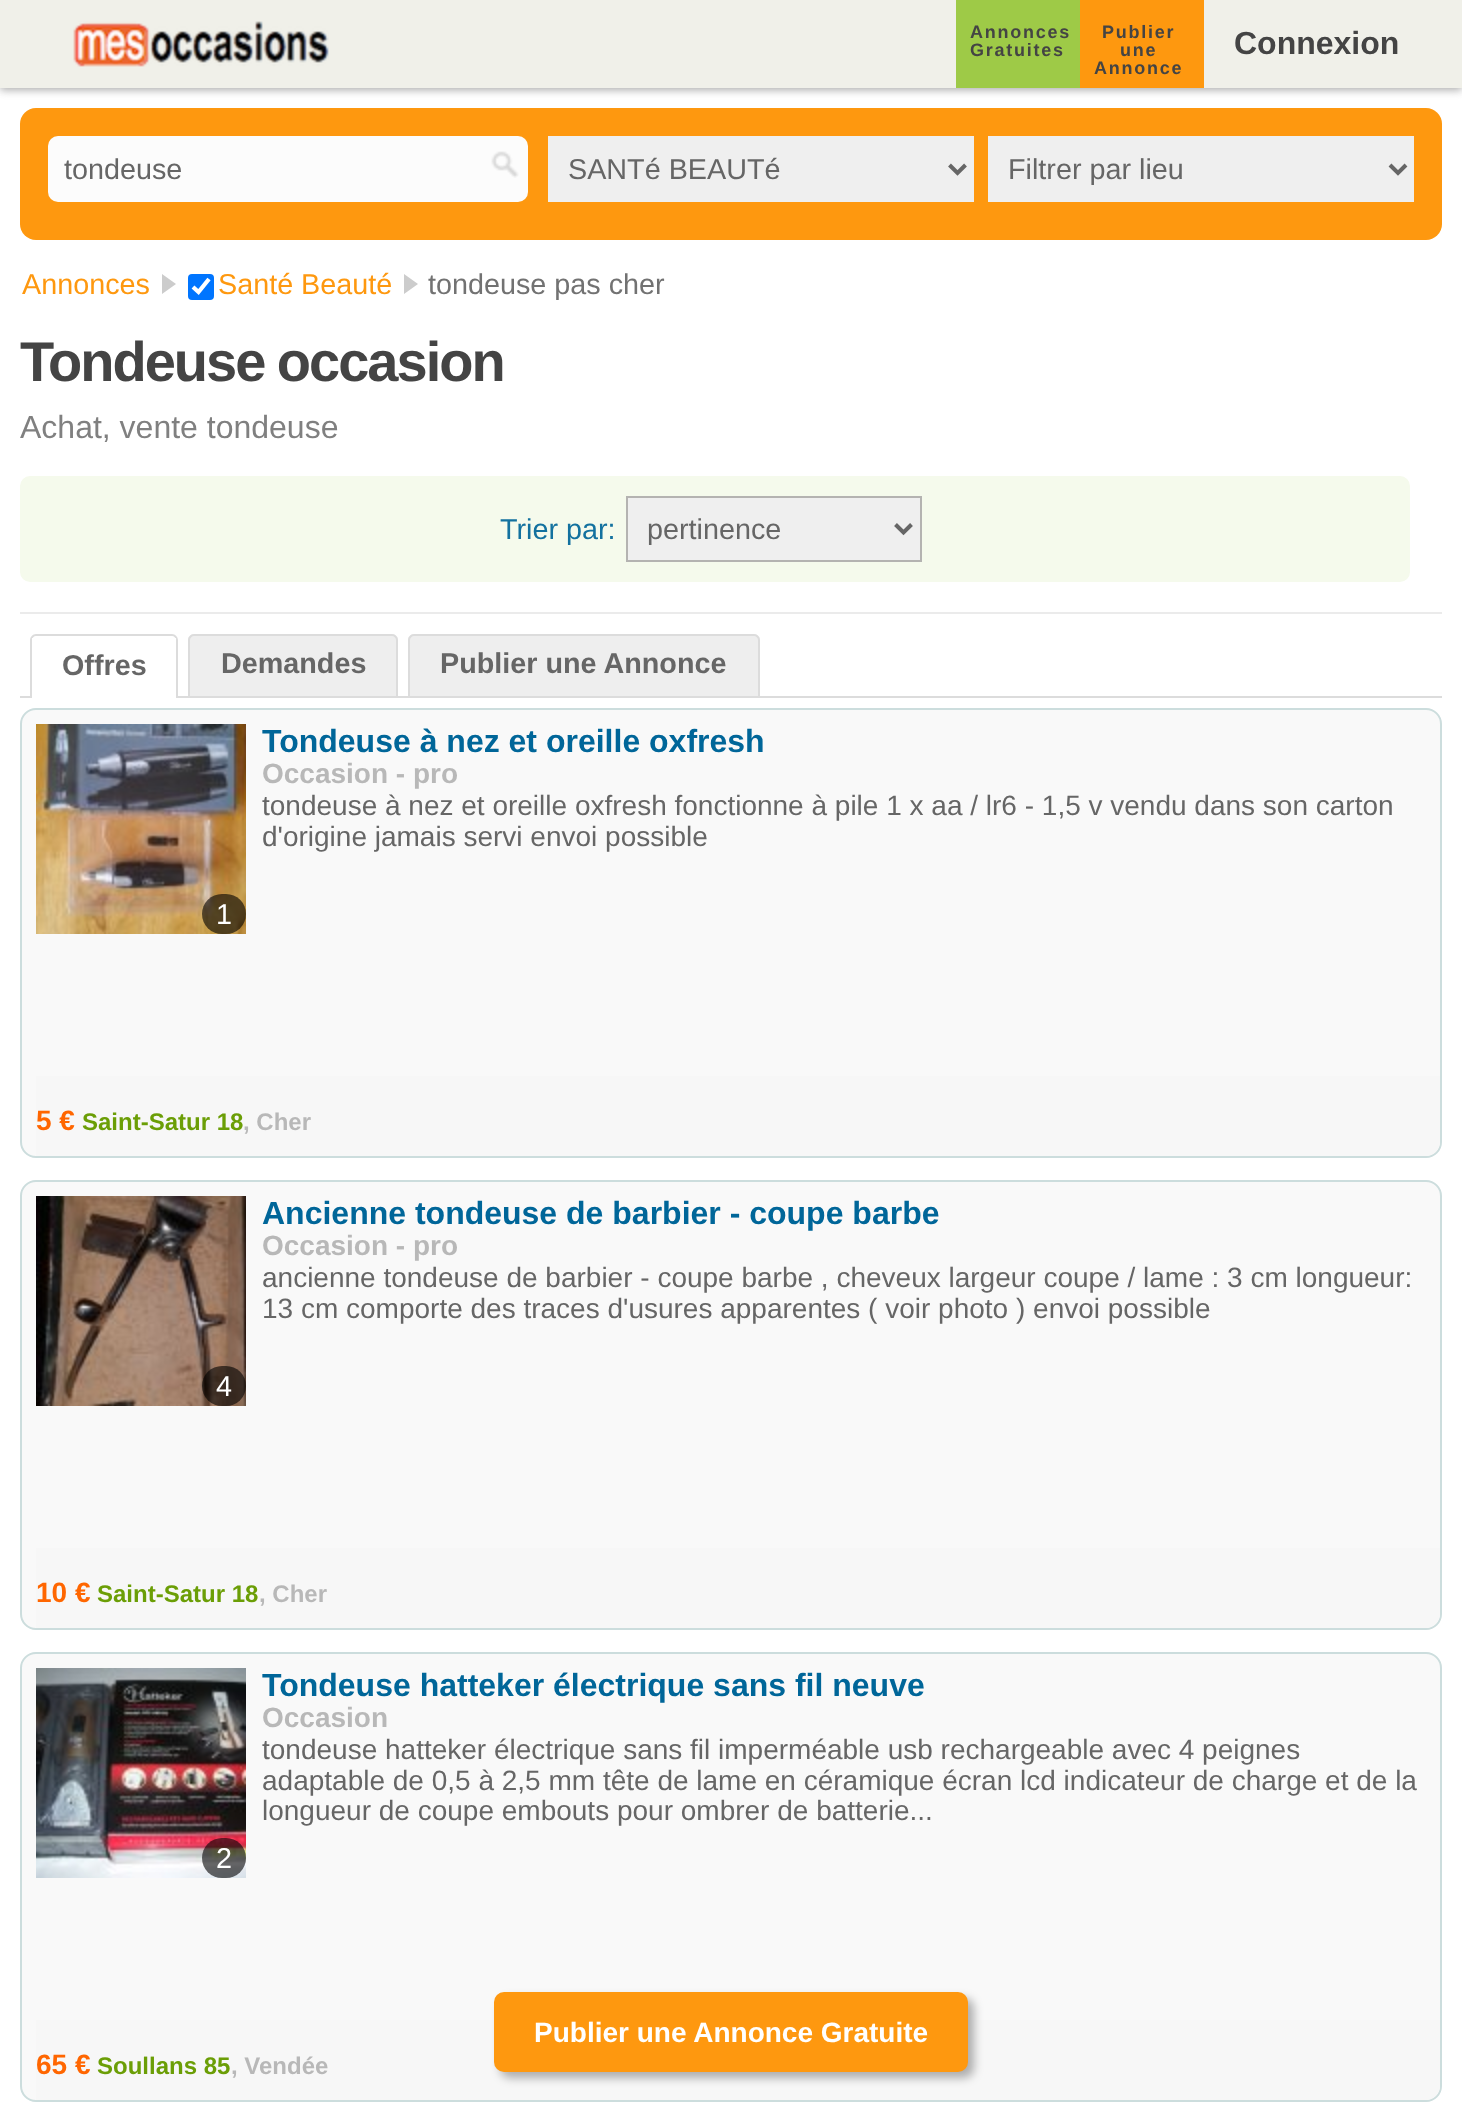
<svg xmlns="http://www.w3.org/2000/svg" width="1462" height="2102">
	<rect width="100%" height="100%" fill="#FFFFFF" />
	<rect x="0" y="2" width="1462" height="88" fill="#AAAAAA" filter="blur(4px)" />
	<rect x="0" y="0" width="1462" height="88" fill="#F0F0E9" />
	<image x="73" y="21" width="256" height="46" href="assets/img1.png" />
	<rect x="956" y="0" width="124" height="88" fill="#9ECA47" />
	<g font-family="Liberation Sans" font-size="18" font-weight="700" letter-spacing="1.75" fill="#444444">
		<text x="970" y="38">Annonces</text>
		<text x="970" y="56">Gratuites</text>
	</g>
	<rect x="1080" y="0" width="124" height="88" fill="#FE980F" />
	<g font-family="Liberation Sans" font-size="18" font-weight="700" letter-spacing="1.75" fill="#444444">
		<text x="1102" y="38">Publier</text>
		<text x="1120" y="56">une</text>
		<text x="1094" y="74">Annonce</text>
	</g>
	<text x="1234" y="54" font-family="Liberation Sans" font-size="32" font-weight="700" fill="#444444">Connexion</text>
	<rect x="20" y="108" width="1422" height="132" rx="16" fill="#FE980F" />
	<rect x="48" y="136" width="480" height="66" rx="10" fill="#FCFCFC" />
	<image x="491" y="151" width="28" height="27" href="assets/img2.png" />
	<text x="64" y="179" font-family="Liberation Sans" font-size="28.75" fill="#666666">tondeuse</text>
	<rect x="548" y="136" width="426" height="66" fill="#EFEFEF" />
	<path d="M949.5 165L957.5 173L965.5 165" fill="none" stroke="#666666" stroke-width="4" />
	<text x="568" y="179" font-family="Liberation Sans" font-size="28.75" fill="#666666">SANTé BEAUTé</text>
	<rect x="988" y="136" width="426" height="66" fill="#EFEFEF" />
	<path d="M1390 165L1398 173L1406 165" fill="none" stroke="#666666" stroke-width="4" />
	<text x="1008" y="179" font-family="Liberation Sans" font-size="28.75" fill="#666666">Filtrer par lieu</text>
	<text x="22" y="294" font-family="Liberation Sans" font-size="28.75" fill="#FE980F">Annonces</text>
	<path d="M162 294V274L176 284Z" fill="#CCCCCC" />
	<rect x="188" y="274" width="26" height="26" rx="4" fill="#0075FF" />
	<path d="M193 287L198.5 292L209 279" fill="none" stroke="#FFFFFF" stroke-width="4.2" />
	<text x="218" y="294" font-family="Liberation Sans" font-size="28.75" fill="#FE980F">Santé Beauté</text>
	<path d="M404 294V274L418 284Z" fill="#CCCCCC" />
	<text x="428" y="294" font-family="Liberation Sans" font-size="28.75" fill="#727272">tondeuse pas cher</text>
	<rect x="20" y="612" width="1422" height="2" fill="#EBEBEB" />
	<text x="20" y="381" word-spacing="-1" font-family="Liberation Sans" font-size="56" font-weight="700" letter-spacing="-2" fill="#444444">Tondeuse occasion</text>
	<text x="20" y="438" font-family="Liberation Sans" font-size="32" fill="#808080">Achat, vente tondeuse</text>
	<rect x="20" y="476" width="1390" height="106" rx="10" fill="#F5FAEC" />
	<text x="500" y="539" font-family="Liberation Sans" font-size="28.75" fill="#13719F">Trier par:</text>
	<rect x="627" y="497" width="294" height="64" fill="#EFEFEF" stroke="#B4B3B1" stroke-width="2" />
	<path d="M895.5 524.5L903.5 532.5L911.5 524.5" fill="none" stroke="#666666" stroke-width="4" />
	<text x="647" y="539" font-family="Liberation Sans" font-size="28.75" fill="#666666">pertinence</text>
	<rect x="20" y="696" width="1422" height="2" fill="#DCDCDC" />
	<path d="M36 634H172C175 634 178 637 178 640V696H30V640C30 637 33 634 36 634ZM36 636H172C174 636 176 638 176 640V696H32V640C32 638 34 636 36 636Z" fill="#DCDCDC" fill-rule="evenodd" />
	<rect x="32" y="638" width="144" height="60" fill="#FFFFFF" />
	<text x="62" y="675" font-family="Liberation Sans" font-size="28.75" font-weight="700" fill="#666666">Offres</text>
	<path d="M194 634H392C395.5 634 398 636.5 398 640V696H188V640C188 636.5 190.5 634 194 634Z" fill="#EEEEEE" />
	<path d="M194 634H392C395 634 398 637 398 640V696H188V640C188 637 191 634 194 634ZM194 636H392C394 636 396 638 396 640V696H190V640C190 638 192 636 194 636Z" fill="#DCDCDC" fill-rule="evenodd" />
	<text x="221" y="673" font-family="Liberation Sans" font-size="28.75" font-weight="700" fill="#666666">Demandes</text>
	<path d="M414 634H754C757.5 634 760 636.5 760 640V696H408V640C408 636.5 410.5 634 414 634Z" fill="#EEEEEE" />
	<path d="M414 634H754C757 634 760 637 760 640V696H408V640C408 637 411 634 414 634ZM414 636H754C756 636 758 638 758 640V696H410V640C410 638 412 636 414 636Z" fill="#DCDCDC" fill-rule="evenodd" />
	<text x="440" y="673" font-family="Liberation Sans" font-size="28.75" font-weight="700" fill="#666666">Publier une Annonce</text>
	<rect x="21" y="709" width="1420" height="448" rx="15" fill="#F9F9F9" stroke="#CCDDDD" stroke-width="2" />
	<text x="262" y="752" font-family="Liberation Sans" font-size="32" font-weight="700" fill="#006699">Tondeuse à nez et oreille oxfresh</text>
	<text x="262" y="783" font-family="Liberation Sans" font-size="28" font-weight="700" fill="#B8B8B8">Occasion - pro</text>
	<g font-family="Liberation Sans" font-size="28" fill="#666666">
		<text x="262" y="815">tondeuse à nez et oreille oxfresh fonctionne à pile 1 x aa / lr6 - 1,5 v vendu dans son carton</text>
		<text x="262" y="846">d'origine jamais servi envoi possible</text>
	</g>
	<image x="36" y="724" width="210" height="210" href="assets/img3.png" />
	<rect x="202" y="894" width="44" height="40" rx="20" fill="#000000" fill-opacity="0.6" />
	<text x="216" y="924" font-family="Liberation Sans" font-size="28.75" fill="#FFFFFF">1</text>
	<path d="M36 1076H1440V1142C1440 1149.5 1433.5 1156 1426 1156H36Z" fill="#F7F7F7" />
	<text x="36" y="1130" font-family="Liberation Sans" font-size="28" font-weight="700" fill="#FF6600">5 €</text>
	<text x="82" y="1130" font-family="Liberation Sans" font-size="24" font-weight="700" fill="#6B9E06">Saint-Satur 18</text>
	<text x="243" y="1130" font-family="Liberation Sans" font-size="24" font-weight="700" fill="#B8B8B8">, Cher</text>
	<rect x="21" y="1181" width="1420" height="448" rx="15" fill="#F9F9F9" stroke="#CCDDDD" stroke-width="2" />
	<text x="262" y="1224" font-family="Liberation Sans" font-size="32" font-weight="700" fill="#006699">Ancienne tondeuse de barbier - coupe barbe</text>
	<text x="262" y="1255" font-family="Liberation Sans" font-size="28" font-weight="700" fill="#B8B8B8">Occasion - pro</text>
	<g font-family="Liberation Sans" font-size="28" fill="#666666">
		<text x="262" y="1287">ancienne tondeuse de barbier - coupe barbe , cheveux largeur coupe / lame : 3 cm longueur:</text>
		<text x="262" y="1318">13 cm comporte des traces d'usures apparentes ( voir photo ) envoi possible</text>
	</g>
	<image x="36" y="1196" width="210" height="210" href="assets/img4.png" />
	<rect x="202" y="1366" width="44" height="40" rx="20" fill="#000000" fill-opacity="0.6" />
	<text x="216" y="1396" font-family="Liberation Sans" font-size="28.75" fill="#FFFFFF">4</text>
	<path d="M36 1548H1440V1614C1440 1621.5 1433.5 1628 1426 1628H36Z" fill="#F7F7F7" />
	<text x="36" y="1602" font-family="Liberation Sans" font-size="28" font-weight="700" fill="#FF6600">10 €</text>
	<text x="97" y="1602" font-family="Liberation Sans" font-size="24" font-weight="700" fill="#6B9E06">Saint-Satur 18</text>
	<text x="259" y="1602" font-family="Liberation Sans" font-size="24" font-weight="700" fill="#B8B8B8">, Cher</text>
	<rect x="21" y="1653" width="1420" height="448" rx="15" fill="#F9F9F9" stroke="#CCDDDD" stroke-width="2" />
	<text x="262" y="1696" font-family="Liberation Sans" font-size="32" font-weight="700" fill="#006699">Tondeuse hatteker électrique sans fil neuve</text>
	<text x="262" y="1727" font-family="Liberation Sans" font-size="28" font-weight="700" fill="#B8B8B8">Occasion</text>
	<g font-family="Liberation Sans" font-size="28" fill="#666666">
		<text x="262" y="1759">tondeuse hatteker électrique sans fil imperméable usb rechargeable avec 4 peignes</text>
		<text x="262" y="1790">adaptable de 0,5 à 2,5 mm tête de lame en céramique écran lcd indicateur de charge et de la</text>
		<text x="262" y="1820">longueur de coupe embouts pour ombrer de batterie...</text>
	</g>
	<image x="36" y="1668" width="210" height="210" href="assets/img5.png" />
	<rect x="202" y="1838" width="44" height="40" rx="20" fill="#000000" fill-opacity="0.6" />
	<text x="216" y="1868" font-family="Liberation Sans" font-size="28.75" fill="#FFFFFF">2</text>
	<path d="M36 2020H1440V2086C1440 2093.5 1433.5 2100 1426 2100H36Z" fill="#F7F7F7" />
	<text x="36" y="2074" font-family="Liberation Sans" font-size="28" font-weight="700" fill="#FF6600">65 €</text>
	<text x="97" y="2074" font-family="Liberation Sans" font-size="24" font-weight="700" fill="#6B9E06">Soullans 85</text>
	<text x="231" y="2074" font-family="Liberation Sans" font-size="24" font-weight="700" fill="#B8B8B8">, Vendée</text>
	<rect x="500" y="1998" width="474" height="80" rx="10" fill="#000000" fill-opacity="0.3" filter="blur(5px)" />
	<rect x="494" y="1992" width="474" height="80" rx="10" fill="#FE980F" />
	<text x="534" y="2042" font-family="Liberation Sans" font-size="28" font-weight="700" fill="#FFFFFF">Publier une Annonce Gratuite</text>
</svg>
